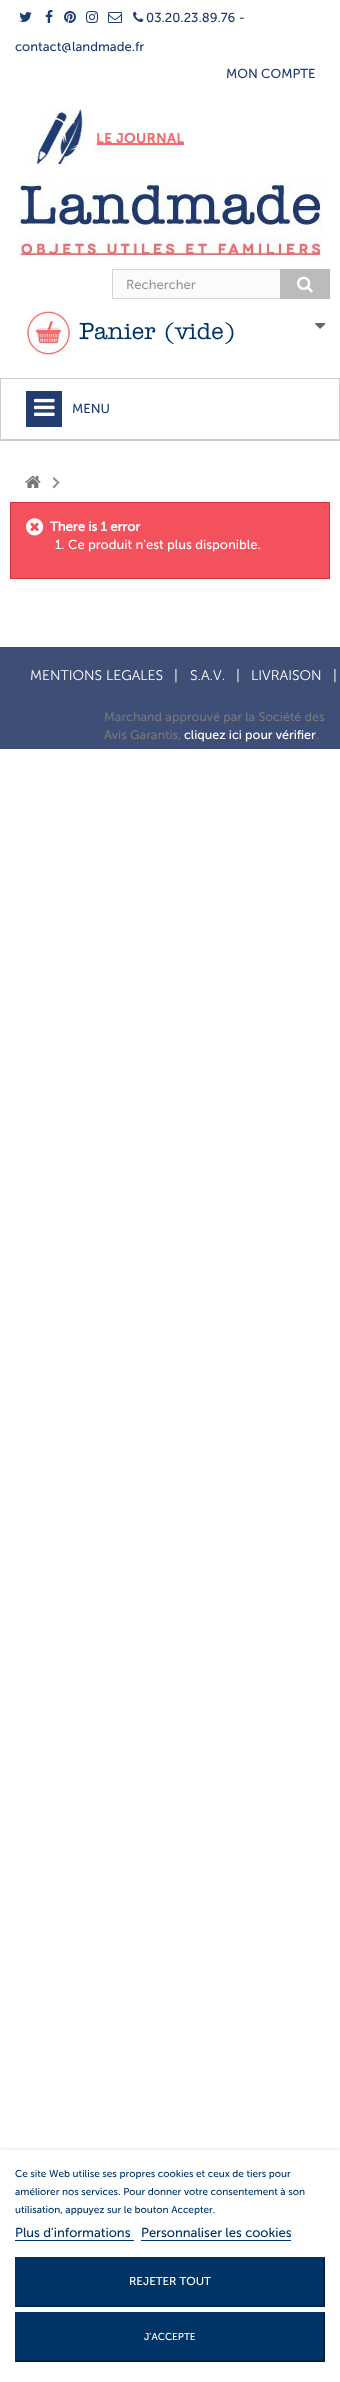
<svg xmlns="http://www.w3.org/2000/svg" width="340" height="2382">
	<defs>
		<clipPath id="clip1"><rect x="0" y="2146" width="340" height="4" /></clipPath>
	</defs>
	<rect width="100%" height="100%" fill="#FFFFFF" />
	<image x="19" y="12" width="13" height="10" href="assets/img1.png" />
	<image x="45" y="10" width="8" height="13" href="assets/img2.png" />
	<image x="64" y="11" width="12" height="12" href="assets/img3.png" />
	<image x="86" y="11" width="12" height="12" href="assets/img4.png" />
	<image x="108" y="12" width="14" height="11" href="assets/img5.png" />
	<image x="133" y="11" width="11" height="11" href="assets/img6.png" />
	<g font-family="Museo Sans" font-size="13" fill="#213C71">
		<text x="146" y="22">03.20.23.89.76 -</text>
		<text x="15" y="51">contact@landmade.fr</text>
		<text x="226" y="78">MON COMPTE</text>
	</g>
	<image x="30" y="109" width="156" height="56" href="assets/img7.png" />
	<image x="19" y="181" width="303" height="78" href="assets/img8.png" />
	<rect x="113" y="270" width="167" height="28" fill="#FBFBFB" />
	<rect x="112.5" y="269.5" width="217" height="29" fill="none" stroke="#D6D4D4" />
	<text x="126" y="289" font-family="Museo Sans" font-size="13" fill="#999999">Rechercher</text>
	<rect x="280" y="269" width="50" height="30" fill="#BBBBBB" />
	<image x="297" y="276" width="16" height="17" href="assets/img9.png" />
	<image x="26" y="311" width="45" height="44" href="assets/img10.png" />
	<text x="79" y="339" font-family="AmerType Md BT" font-size="24" font-weight="500" fill="#003466">Panier (vide)</text>
	<image x="315" y="323" width="11" height="6" href="assets/img11.png" />
	<rect x="0.5" y="378.5" width="339" height="61" fill="none" stroke="#CECECE" />
	<rect x="26" y="391" width="36" height="36" fill="#213C71" />
	<image x="34" y="398" width="21" height="18" href="assets/img12.png" />
	<text x="72" y="413" font-family="Museo Sans" font-size="13" fill="#213C71">MENU</text>
	<rect x="0" y="440" width="340" height="1" fill="#CECECE" />
	<image x="25" y="475" width="16" height="13" href="assets/img13.png" />
	<path d="M54 477L59.5 482.5L58 484L52.5 478.5Z" fill="#998D83" />
	<path d="M58 481.5L59.5 482.5L54 488.5L52.5 487Z" fill="#998D83" />
	<rect x="10.5" y="502.5" width="319" height="76" fill="#F3515C" stroke="#D4323D" />
	<image x="26" y="518" width="18" height="18" href="assets/img14.png" />
	<text x="50" y="531" font-family="Museo Sans" font-size="13" font-weight="700" fill="#FFFFFF">There is 1 error</text>
	<text x="55" y="549" font-family="Museo Sans" font-size="13" fill="#FFFFFF">1. Ce produit n'est plus disponible.</text>
	<rect x="0" y="647" width="340" height="102" fill="#3E4E77" />
	<g font-family="Museo Sans" font-size="14" font-weight="300" fill="#FFFFFF">
		<text x="30" y="680">MENTIONS LEGALES</text>
		<text x="174" y="680">|</text>
		<text x="190" y="680">S.A.V.</text>
		<text x="236" y="680">|</text>
		<text x="251" y="680">LIVRAISON</text>
		<text x="333" y="680">|</text>
	</g>
	<g font-family="Museo Sans" font-size="12.5" fill="#777777">
		<text x="104" y="721">Marchand approuvé par la Société des</text>
		<text x="104" y="739">Avis Garantis,</text>
	</g>
	<text x="184" y="739" font-family="Museo Sans" font-size="12.5" fill="#FFFFFF">cliquez ici pour vérifier</text>
	<text x="316" y="739" font-family="Museo Sans" font-size="12.5" fill="#777777">.</text>
	<g clip-path="url(#clip1)">
		<rect x="0" y="2151" width="340" height="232" fill="#C4C4C4" filter="blur(2.5px)" />
	</g>
	<g font-family="Museo Sans" font-size="10" fill="#003466">
		<text x="15" y="2177">Ce site Web utilise ses propres cookies et ceux de tiers pour</text>
		<text x="15" y="2195">améliorer nos services. Pour donner votre consentement à son</text>
		<text x="15" y="2213">utilisation, appuyez sur le bouton Accepter.</text>
	</g>
	<text x="15" y="2237" font-family="Museo Sans" font-size="13" fill="#003466">Plus d'informations</text>
	<rect x="15" y="2240" width="119" height="1" fill="#003466" />
	<text x="141" y="2237" font-family="Museo Sans" font-size="13" fill="#003466">Personnaliser les cookies</text>
	<rect x="141" y="2240" width="150" height="1" fill="#003466" />
	<rect x="15" y="2257" width="310" height="50" fill="#003466" />
	<path d="M325 2257V2307L323 2305V2259Z" fill="#002344" />
	<path d="M325 2307H15L17 2305H323Z" fill="#002344" />
	<path d="M15 2307V2257L17 2259V2305Z" fill="#003466" />
	<text x="129" y="2285" font-family="Museo Sans" font-size="11.5" fill="#FFFFFF">REJETER TOUT</text>
	<rect x="15" y="2312" width="310" height="50" fill="#003466" />
	<path d="M325 2312V2362L323 2360V2314Z" fill="#002344" />
	<path d="M325 2362H15L17 2360H323Z" fill="#002344" />
	<path d="M15 2362V2312L17 2314V2360Z" fill="#003466" />
	<text x="144" y="2340" font-family="Museo Sans" font-size="10" fill="#FFFFFF">J'ACCEPTE</text>
</svg>
